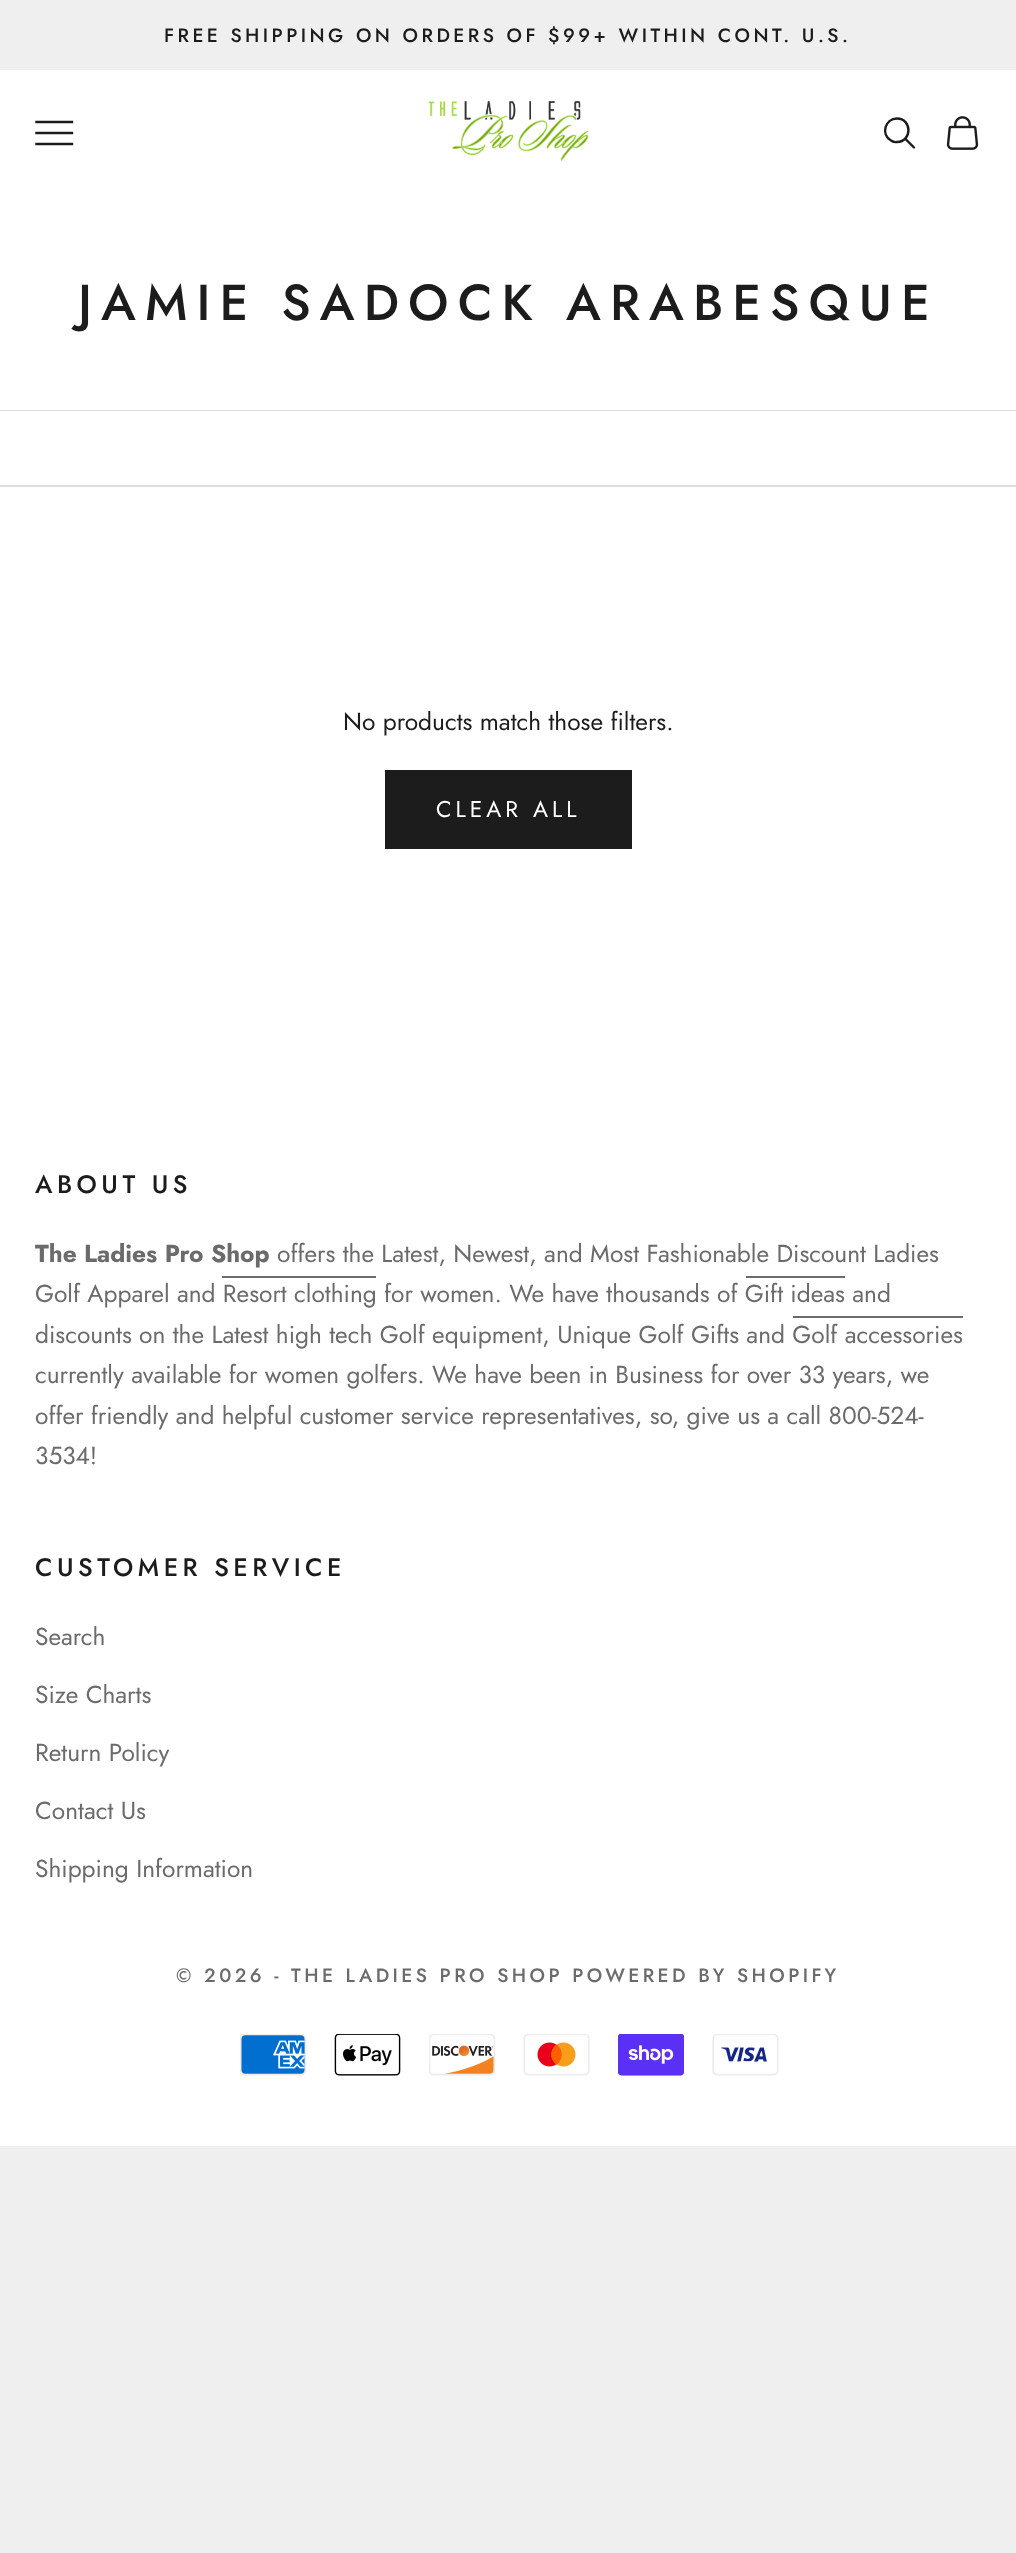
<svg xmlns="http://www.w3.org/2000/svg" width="1016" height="2553">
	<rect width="100%" height="100%" fill="#EFEFEF" />
	<text x="164" y="42" font-family="Jost" font-size="19.25" font-weight="500" letter-spacing="3.45" fill="#1C1C1C">FREE SHIPPING ON ORDERS OF $99+ WITHIN CONT. U.S.</text>
	<rect x="0" y="70" width="1016" height="340" fill="#FFFFFF" />
	<path d="M36.5 144H72M36.5 133H72M36.5 122H72" fill="none" stroke="#1C1C1C" stroke-width="2.4" stroke-linecap="square" />
	<image x="428" y="100" width="161" height="61" href="assets/img1.png" />
	<path d="M897 118.5C885 118.5 880.5 134.5 891 140.5C892.5 141.5 895 142.5 897 142C912.5 141.5 912 118.5 897 118.5Z" fill="none" stroke="#1C1C1C" stroke-width="2.4" />
	<path d="M905.5 139L914 147.5" fill="none" stroke="#1C1C1C" stroke-width="2.4" stroke-linecap="round" />
	<image x="946" y="116" width="33" height="34" href="assets/img2.png" />
	<text x="78" y="320" font-family="Jost" font-size="50.4" font-weight="500" letter-spacing="9.1" fill="#1C1C1C">JAMIE SADOCK ARABESQUE</text>
	<rect x="0" y="411" width="1016" height="1735" fill="#FFFFFF" />
	<path d="M0 410V411H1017V483V410Z" fill="#DDDDDD" />
	<path d="M0 485V487H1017V413V485Z" fill="#DDDDDD" />
	<text x="343" y="730" font-family="Jost" font-size="24.5" fill="#1C1C1C">No products match those filters.</text>
	<rect x="386" y="771" width="245" height="77" fill="#1C1C1C" stroke="#1C1C1C" stroke-width="2" />
	<text x="436" y="817" font-family="Jost" font-size="22.75" letter-spacing="4" fill="#FFFFFF">CLEAR ALL</text>
	<text x="35" y="1193" font-family="Jost" font-size="25.25" font-weight="500" letter-spacing="4.5" fill="#1C1C1C">ABOUT US</text>
	<text x="35" y="1262" font-family="Jost" font-size="24.5" font-weight="700" fill="#6B6B6B">The Ladies Pro Shop</text>
	<text x="277" y="1262" font-family="Jost" font-size="24.5" fill="#6B6B6B">offers the Latest, Newest, and Most Fashionable Discount Ladies</text>
	<rect x="222" y="1276" width="154" height="2" fill="#6B6B6B" />
	<rect x="746" y="1276" width="99" height="2" fill="#6B6B6B" />
	<text x="35" y="1302" font-family="Jost" font-size="24.5" fill="#6B6B6B">Golf Apparel and Resort clothing for women. We have thousands of Gift ideas and</text>
	<rect x="793" y="1316" width="170" height="2" fill="#6B6B6B" />
	<g font-family="Jost" font-size="24.5" fill="#6B6B6B">
		<text x="35" y="1343">discounts on the Latest high tech Golf equipment, Unique Golf Gifts and Golf accessories</text>
		<text x="35" y="1383">currently available for women golfers. We have been in Business for over 33 years, we</text>
		<text x="35" y="1424">offer friendly and helpful customer service representatives, so, give us a call 800-524-</text>
		<text x="35" y="1464">3534!</text>
	</g>
	<text x="35" y="1576" font-family="Jost" font-size="25.25" font-weight="500" letter-spacing="4.5" fill="#1C1C1C">CUSTOMER SERVICE</text>
	<g font-family="Jost" font-size="24.5" fill="#6B6B6B">
		<text x="35" y="1645">Search</text>
		<text x="35" y="1703">Size Charts</text>
		<text x="35" y="1761">Return Policy</text>
		<text x="35" y="1819">Contact Us</text>
		<text x="35" y="1877">Shipping Information</text>
	</g>
	<text x="176" y="1982" font-family="Jost" font-size="19.25" font-weight="500" letter-spacing="3.45" fill="#6B6B6B">© 2026 - THE LADIES PRO SHOP POWERED BY SHOPIFY</text>
	<image x="240" y="2034" width="66" height="42" href="assets/img3.png" />
	<image x="334" y="2034" width="67" height="42" href="assets/img4.png" />
	<image x="429" y="2034" width="66" height="42" href="assets/img5.png" />
	<image x="523" y="2034" width="67" height="42" href="assets/img6.png" />
	<image x="618" y="2034" width="66" height="42" href="assets/img7.png" />
	<image x="712" y="2034" width="67" height="42" href="assets/img8.png" />
</svg>
